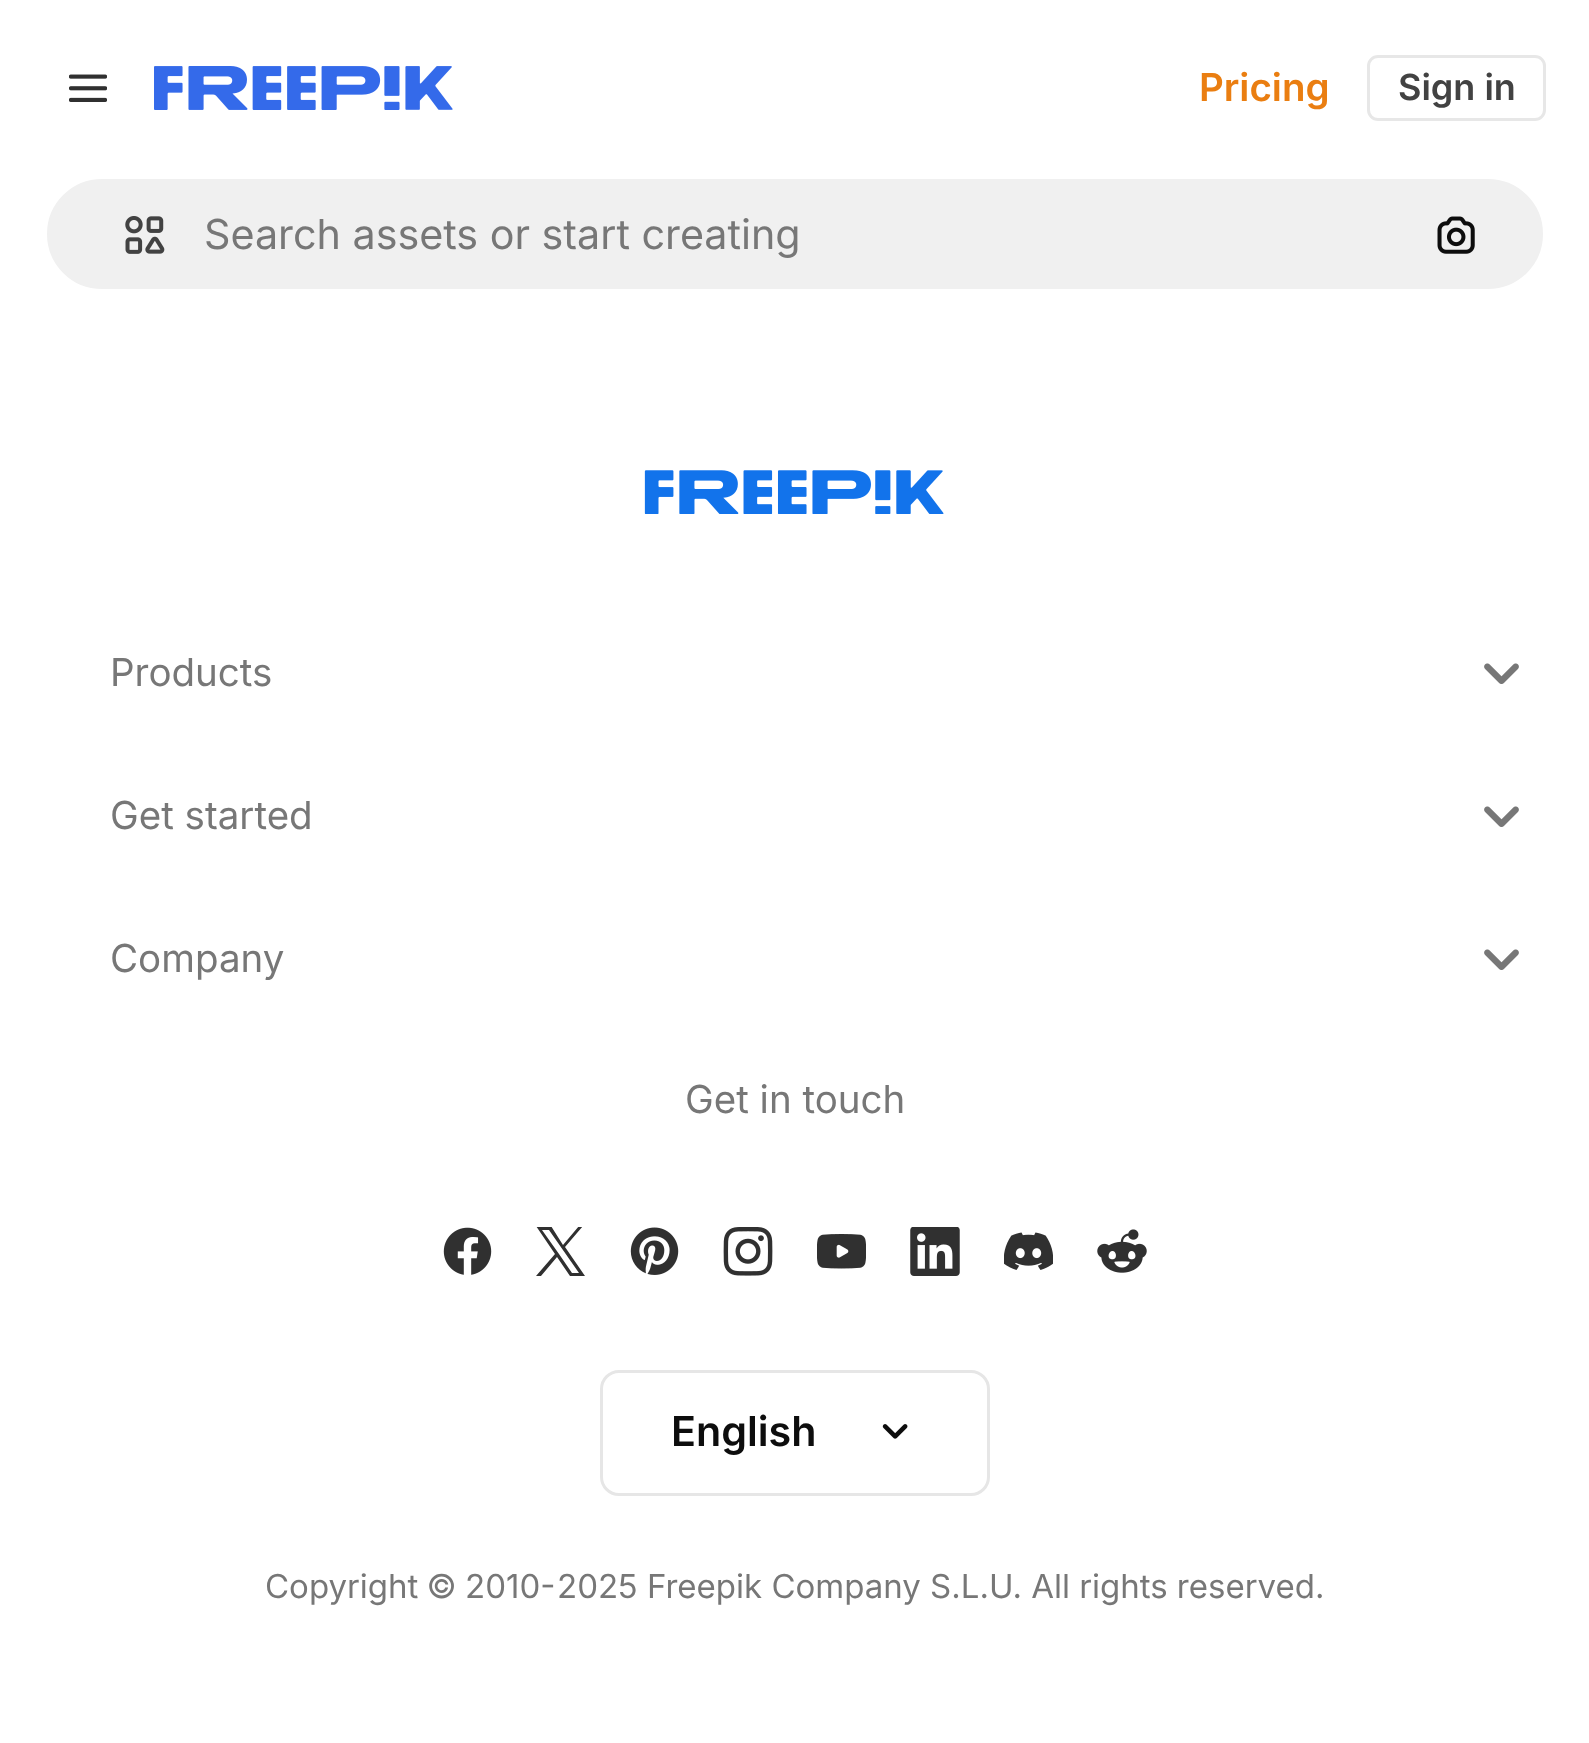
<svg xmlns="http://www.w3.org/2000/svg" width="1589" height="1743">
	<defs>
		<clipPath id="clip1"><rect x="536" y="1227" width="50" height="49" /></clipPath>
	</defs>
	<rect width="100%" height="100%" fill="#FFFFFF" />
	<image x="69" y="74" width="38" height="28" href="assets/img1.png" />
	<image x="154" y="66" width="299" height="44" href="assets/img2.png" />
	<text x="1199" y="101" font-family="Inter" font-size="38.5" font-weight="600" fill="#EA7E11">Pricing</text>
	<rect x="1368.5" y="56.5" width="176" height="63" rx="9.5" fill="none" stroke="#E7E7E7" stroke-width="3" />
	<text x="1398" y="100" font-family="Inter" font-size="36" font-weight="600" fill="#424242">Sign in</text>
	<rect x="45.5" y="177.5" width="1499" height="113" rx="56.5" fill="#F0F0F0" stroke="#FFFFFF" stroke-width="3" />
	<image x="125" y="216" width="40" height="38" href="assets/img3.png" />
	<text x="204" y="249" font-family="Inter" font-size="41.25" fill="#777777">Search assets or start creating</text>
	<image x="1437" y="216" width="38" height="38" href="assets/img4.png" />
	<image x="644" y="470" width="300" height="44" href="assets/img5.png" />
	<text x="110" y="686" font-family="Inter" font-size="38.5" fill="#777777">Products</text>
	<image x="1484" y="663" width="35" height="21" href="assets/img6.png" />
	<text x="110" y="829" font-family="Inter" font-size="38.5" fill="#777777">Get started</text>
	<image x="1484" y="806" width="35" height="21" href="assets/img6.png" />
	<text x="110" y="972" font-family="Inter" font-size="38.5" fill="#777777">Company</text>
	<image x="1484" y="949" width="35" height="21" href="assets/img6.png" />
	<text x="685" y="1113" font-family="Inter" font-size="38.5" fill="#777777">Get in touch</text>
	<image x="443" y="1227" width="49" height="48" href="assets/img7.png" />
	<g clip-path="url(#clip1)">
		<path d="M565 1247L583 1226H579L563 1245L551 1226H536L555 1254L536 1276H541L557 1257L570 1276H585ZM559 1254L542 1230H549L579 1273H572Z" fill="#303030" />
	</g>
	<image x="630" y="1227" width="49" height="48" href="assets/img8.png" />
	<image x="723" y="1227" width="50" height="49" href="assets/img9.png" />
	<image x="817" y="1234" width="49" height="35" href="assets/img10.png" />
	<image x="910" y="1227" width="50" height="49" href="assets/img11.png" />
	<image x="1004" y="1232" width="49" height="38" href="assets/img12.png" />
	<image x="1097" y="1229" width="50" height="44" href="assets/img13.png" />
	<rect x="601.5" y="1371.5" width="387" height="123" rx="17.5" fill="none" stroke="#E6E6E6" stroke-width="3" />
	<text x="671" y="1446" font-family="Inter" font-size="41.25" font-weight="600" fill="#0D0D0D">English</text>
	<image x="882" y="1424" width="26" height="15" href="assets/img14.png" />
	<g font-family="Inter" font-size="33" fill="#777777">
		<text x="265" y="1598" word-spacing="-1">Copyright © 2010-</text>
		<text x="557" y="1598">2025 Freepik Company S.L.U. All rights reserved.</text>
	</g>
</svg>
